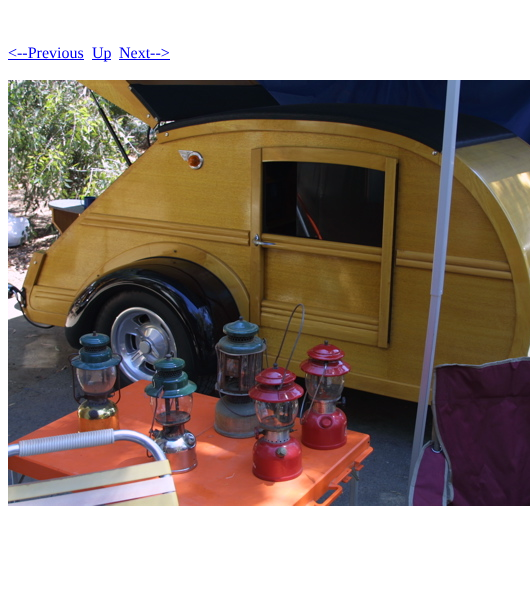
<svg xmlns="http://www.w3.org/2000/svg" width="530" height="600">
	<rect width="100%" height="100%" fill="#FFFFFF" />
	<text x="8" y="58" font-family="Liberation Serif" font-size="16" fill="#0000EE">&lt;--Previous</text>
	<rect x="8" y="59" width="76" height="1" fill="#0000EE" />
	<rect x="92" y="59" width="19" height="1" fill="#0000EE" />
	<g font-family="Liberation Serif" font-size="16" fill="#0000EE">
		<text x="92" y="58">Up</text>
		<text x="119" y="58">Next--&gt;</text>
	</g>
	<rect x="119" y="59" width="51" height="1" fill="#0000EE" />
	<image x="8" y="80" width="522" height="426" href="assets/img1.png" />
</svg>
